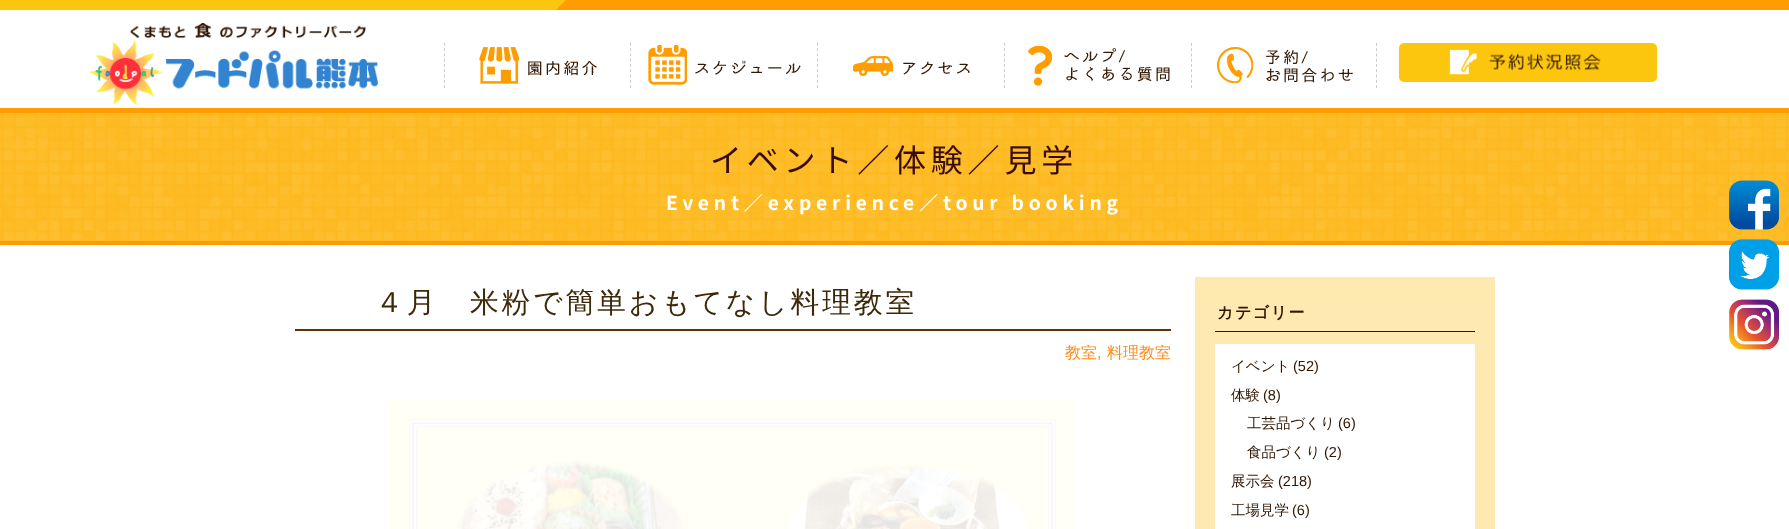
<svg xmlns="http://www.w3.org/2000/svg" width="1789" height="529">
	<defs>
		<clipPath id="clip1"><rect x="0" y="0" width="1789" height="10" /></clipPath>
	</defs>
	<rect width="100%" height="100%" fill="#FFFFFF" />
	<rect x="556" y="0" width="1233" height="10" fill="#FF9C00" />
	<g clip-path="url(#clip1)">
		<path d="M0-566L566 0L0 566L-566 0Z" fill="#FBC60D" />
	</g>
	<image x="89" y="23" width="290" height="82" href="assets/img1.png" />
	<path d="M444.5 43V88" fill="none" stroke="#CCCCCC" stroke-dasharray="3 2.25" />
	<image x="479" y="47" width="118" height="37" href="assets/img2.png" />
	<path d="M630.5 43V88" fill="none" stroke="#CCCCCC" stroke-dasharray="3 2.25" />
	<image x="648" y="45" width="153" height="40" href="assets/img3.png" />
	<path d="M817.5 43V88" fill="none" stroke="#CCCCCC" stroke-dasharray="3 2.25" />
	<image x="853" y="56" width="117" height="20" href="assets/img4.png" />
	<path d="M1004.5 43V88" fill="none" stroke="#CCCCCC" stroke-dasharray="3 2.25" />
	<image x="1028" y="46" width="142" height="40" href="assets/img5.png" />
	<path d="M1376.5 43V88" fill="none" stroke="#CCCCCC" stroke-dasharray="3 2.25" />
	<path d="M1191.5 43V88" fill="none" stroke="#CCCCCC" stroke-dasharray="3 2.25" />
	<image x="1217" y="47" width="136" height="36" href="assets/img6.png" />
	<image x="1399" y="43" width="258" height="39" href="assets/img7.png" />
	<rect x="0" y="108" width="1789" height="5" fill="#FF9C00" />
	<image x="0" y="113" width="1789" height="128" href="assets/img8.png" />
	<rect x="0" y="241" width="1789" height="4" fill="#FF9C00" />
	<text x="710" y="172" font-family="Noto Sans JP" font-size="32" letter-spacing="4.8" fill="#390C0C">イベント／体験／見学</text>
	<text x="666" y="210" font-family="Noto Sans JP" font-size="19.2" font-weight="700" letter-spacing="4.8" fill="#FFFFFF">Event／experience／tour booking</text>
	<image x="1729" y="180" width="50" height="50" href="assets/img9.png" />
	<image x="1729" y="239" width="50" height="51" href="assets/img10.png" />
	<image x="1729" y="299" width="50" height="51" href="assets/img11.png" />
	<rect x="295" y="329" width="876" height="2" fill="#5E3506" />
	<text x="375" y="312" font-family="WenQuanYi Zen Hei" font-size="28.75" font-weight="500" letter-spacing="2.9" fill="#3D280A">４月　米粉で簡単おもてなし料理教室</text>
	<text x="1065" y="358" font-family="WenQuanYi Zen Hei" font-size="16" font-weight="500" fill="#FF8B19">教室</text>
	<text x="1097" y="358" font-family="Liberation Sans" font-size="16" fill="#FF8B19">,</text>
	<text x="1107" y="358" font-family="WenQuanYi Zen Hei" font-size="16" font-weight="500" fill="#FF8B19">料理教室</text>
	<image x="390" y="400" width="685" height="129" href="assets/img12.png" />
	<rect x="1195" y="277" width="300" height="252" fill="#FEE9B0" />
	<rect x="1215" y="331" width="260" height="1" fill="#2F1704" />
	<text x="1217" y="318" font-family="WenQuanYi Zen Hei" font-size="16" font-weight="700" letter-spacing="1.5" fill="#2F1704">カテゴリー</text>
	<rect x="1215" y="344" width="260" height="185" fill="#FFFFFF" />
	<text x="1231" y="371" font-family="WenQuanYi Zen Hei" font-size="14.5" font-weight="500" fill="#2F1704">イベント</text>
	<text x="1293" y="371" font-family="Liberation Sans" font-size="14.5" fill="#2F1704">(52)</text>
	<text x="1231" y="400" font-family="WenQuanYi Zen Hei" font-size="14.5" font-weight="500" fill="#2F1704">体験</text>
	<text x="1263" y="400" font-family="Liberation Sans" font-size="14.5" fill="#2F1704">(8)</text>
	<text x="1247" y="428" font-family="WenQuanYi Zen Hei" font-size="14.5" font-weight="500" fill="#2F1704">工芸品づくり</text>
	<text x="1338" y="428" font-family="Liberation Sans" font-size="14.5" fill="#2F1704">(6)</text>
	<text x="1247" y="457" font-family="WenQuanYi Zen Hei" font-size="14.5" font-weight="500" fill="#2F1704">食品づくり</text>
	<text x="1324" y="457" font-family="Liberation Sans" font-size="14.5" fill="#2F1704">(2)</text>
	<text x="1231" y="486" font-family="WenQuanYi Zen Hei" font-size="14.5" font-weight="500" fill="#2F1704">展示会</text>
	<text x="1278" y="486" font-family="Liberation Sans" font-size="14.5" fill="#2F1704">(218)</text>
	<text x="1231" y="515" font-family="WenQuanYi Zen Hei" font-size="14.5" font-weight="500" fill="#2F1704">工場見学</text>
	<text x="1292" y="515" font-family="Liberation Sans" font-size="14.5" fill="#2F1704">(6)</text>
</svg>
